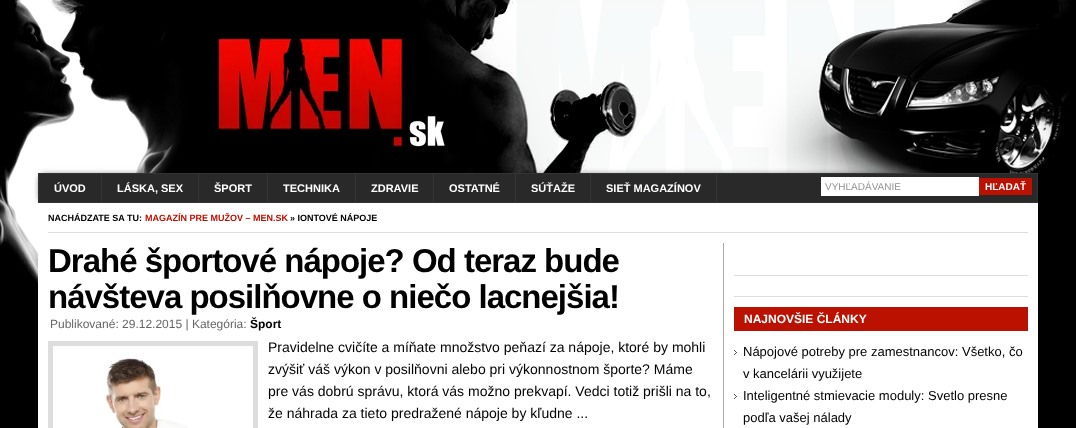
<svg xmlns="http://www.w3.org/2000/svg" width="1076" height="428">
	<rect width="100%" height="100%" fill="#000000" />
	<image x="0" y="0" width="1070" height="284" href="assets/img1.png" />
	<rect x="1037" y="24" width="1" height="1" fill="#1B1B1B" />
	<image x="217" y="36" width="229" height="112" href="assets/img2.png" />
	<rect x="41" y="176" width="994" height="24" fill="#000000" filter="blur(3.5px)" />
	<rect x="38.5" y="173.5" width="999" height="29" fill="#292929" stroke="#343434" />
	<rect x="101" y="174" width="1" height="28" fill="#343434" />
	<text x="54" y="192" font-family="Liberation Sans" font-size="11" font-weight="700" fill="#FFFFFF">ÚVOD</text>
	<rect x="198" y="174" width="1" height="28" fill="#343434" />
	<text x="117" y="192" font-family="Liberation Sans" font-size="11" font-weight="700" fill="#FFFFFF">LÁSKA, SEX</text>
	<rect x="267" y="174" width="1" height="28" fill="#343434" />
	<text x="214" y="192" font-family="Liberation Sans" font-size="11" font-weight="700" fill="#FFFFFF">ŠPORT</text>
	<rect x="355" y="174" width="1" height="28" fill="#343434" />
	<text x="283" y="192" font-family="Liberation Sans" font-size="11" font-weight="700" fill="#FFFFFF">TECHNIKA</text>
	<rect x="433" y="174" width="1" height="28" fill="#343434" />
	<text x="371" y="192" font-family="Liberation Sans" font-size="11" font-weight="700" fill="#FFFFFF">ZDRAVIE</text>
	<rect x="515" y="174" width="1" height="28" fill="#343434" />
	<text x="449" y="192" font-family="Liberation Sans" font-size="11" font-weight="700" fill="#FFFFFF">OSTATNÉ</text>
	<rect x="590" y="174" width="1" height="28" fill="#343434" />
	<text x="531" y="192" font-family="Liberation Sans" font-size="11" font-weight="700" fill="#FFFFFF">SÚŤAŽE</text>
	<rect x="716" y="174" width="1" height="28" fill="#343434" />
	<text x="606" y="192" font-family="Liberation Sans" font-size="11" font-weight="700" fill="#FFFFFF">SIEŤ MAGAZÍNOV</text>
	<rect x="821" y="177" width="158" height="19" fill="#FFFFFF" />
	<text x="825" y="190" font-family="Liberation Sans" font-size="10" fill="#939393">VYHĽADÁVANIE</text>
	<rect x="979" y="178" width="53" height="17" fill="#BB1100" />
	<text x="985" y="190" font-family="Liberation Sans" font-size="10" font-weight="700" fill="#FFFFFF">HĽADAŤ</text>
	<rect x="38" y="203" width="1000" height="225" fill="#FFFFFF" />
	<rect x="48" y="232" width="980" height="1" fill="#DDDDDD" />
	<text x="48" y="221" font-family="Liberation Sans" font-size="9" font-weight="700" fill="#000000">NACHÁDZATE SA TU:</text>
	<text x="145" y="221" font-family="Liberation Sans" font-size="9" font-weight="700" fill="#BB1100">MAGAZÍN PRE MUŽOV – MEN.SK</text>
	<text x="290" y="221" font-family="Liberation Sans" font-size="9" font-weight="700" fill="#000000">» IONTOVÉ NÁPOJE</text>
	<rect x="723" y="243" width="1" height="185" fill="#AAAAAA" />
	<g font-family="Liberation Sans" font-size="33" font-weight="700" letter-spacing="-1" fill="#000000">
		<text x="48" y="272">Drahé športové nápoje? Od teraz bude</text>
		<text x="48" y="308">návšteva posilňovne o niečo lacnejšia!</text>
	</g>
	<text x="50" y="328" font-family="Liberation Sans" font-size="12" fill="#666666">Publikované: 29.12.2015 | Kategória:</text>
	<text x="250" y="328" font-family="Liberation Sans" font-size="12" font-weight="700" fill="#000000">Šport</text>
	<rect x="50.5" y="343.5" width="205" height="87" fill="none" stroke="#DDDDDD" stroke-width="5" />
	<image x="104" y="358" width="84" height="70" href="assets/img3.png" />
	<g font-family="Liberation Sans" font-size="14" fill="#000000">
		<text x="268" y="352">Pravidelne cvičíte a míňate množstvo peňazí za nápoje, ktoré by mohli</text>
		<text x="268" y="374">zvýšiť váš výkon v posilňovni alebo pri výkonnostnom športe? Máme</text>
		<text x="268" y="396">pre vás dobrú správu, ktorá vás možno prekvapí. Vedci totiž prišli na to,</text>
		<text x="268" y="418">že náhrada za tieto predražené nápoje by kľudne ...</text>
	</g>
	<rect x="734" y="275" width="294" height="1" fill="#DDDDDD" />
	<rect x="734" y="296" width="294" height="1" fill="#DDDDDD" />
	<rect x="734" y="307" width="294" height="24" fill="#BB1100" />
	<text x="744" y="323" font-family="Liberation Sans" font-size="12" font-weight="700" fill="#FFFFFF">NAJNOVŠIE ČLÁNKY</text>
	<image x="734" y="350" width="3" height="5" href="assets/img4.png" />
	<g font-family="Liberation Sans" font-size="13" fill="#000000">
		<text x="743" y="356">Nápojové potreby pre zamestnancov: Všetko, čo</text>
		<text x="743" y="378">v kancelárii využijete</text>
	</g>
	<image x="734" y="394" width="3" height="5" href="assets/img4.png" />
	<g font-family="Liberation Sans" font-size="13" fill="#000000">
		<text x="743" y="400">Inteligentné stmievacie moduly: Svetlo presne</text>
		<text x="743" y="422">podľa vašej nálady</text>
	</g>
</svg>
